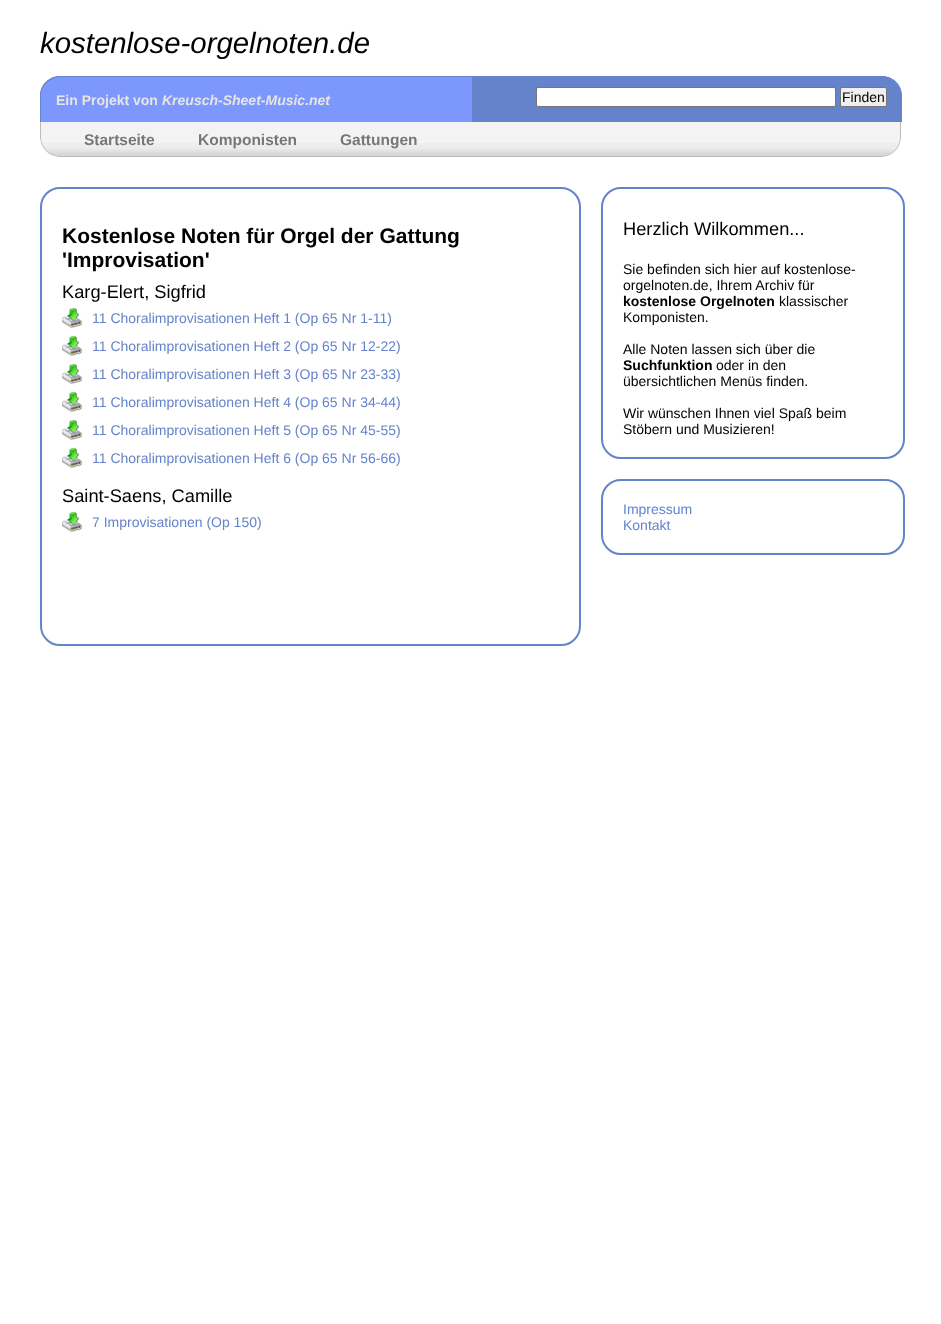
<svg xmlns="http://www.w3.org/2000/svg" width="941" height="1324">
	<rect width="100%" height="100%" fill="#FFFFFF" />
	<text x="40" y="53" font-family="Liberation Sans" font-size="29.4" font-style="italic" fill="#000000">kostenlose-orgelnoten.de</text>
	<path d="M60 76H882C893 76 902 85 902 96V122H40V96C40 85 49 76 60 76Z" fill="#7C98FF" />
	<path d="M60 76H882C893 76 902 85 902 96V122H40V96C40 85 49 76 60 76ZM60 77H882C893 77 902 86 902 96V122H41V96C41 86 50 77 60 77Z" fill="#6483CB" fill-rule="evenodd" />
	<text x="56" y="105" font-family="Liberation Sans" font-size="14" font-weight="700" fill="#E5E5E5">Ein Projekt von</text>
	<text x="162" y="105" font-family="Liberation Sans" font-size="14" font-weight="700" font-style="italic" fill="#E5E5E5">Kreusch-Sheet-Music.net</text>
	<path d="M472 77H882C893 77 902 86 902 97V122H472Z" fill="#6483CB" />
	<rect x="536.5" y="87.5" width="299" height="19" rx="1.5" fill="#FFFFFF" stroke="#767676" />
	<rect x="840.5" y="87.5" width="46" height="19" rx="1.5" fill="#EFEFEF" stroke="#767676" />
	<text x="842" y="102" font-family="Liberation Sans" font-size="14" fill="#000000">Finden</text>
	<rect x="41" y="122" width="859" height="21" fill="#F3F3F3" />
	<image x="42" y="143" width="857" height="13" href="assets/img1.png" />
	<rect x="900" y="122" width="1" height="16" fill="#BBBBBB" />
	<rect x="59" y="156" width="823" height="1" fill="#BBBBBB" />
	<rect x="40" y="122" width="1" height="16" fill="#BBBBBB" />
	<image x="882" y="138" width="19" height="19" href="assets/img2.png" />
	<image x="40" y="138" width="19" height="19" href="assets/img3.png" />
	<g font-family="Liberation Sans" font-size="15.5" font-weight="700" fill="#777777">
		<text x="84" y="145">Startseite</text>
		<text x="198" y="145">Komponisten</text>
		<text x="340" y="145">Gattungen</text>
	</g>
	<rect x="41" y="188" width="539" height="457" rx="19" fill="none" stroke="#6483CB" stroke-width="2" />
	<g font-family="Liberation Sans" font-size="21" font-weight="700" fill="#000000">
		<text x="62" y="243">Kostenlose Noten für Orgel der Gattung</text>
		<text x="62" y="267">'Improvisation'</text>
	</g>
	<text x="62" y="298" font-family="Liberation Sans" font-size="18.25" fill="#000000">Karg-Elert, Sigfrid</text>
	<image x="62" y="308" width="20" height="20" href="assets/img4.png" />
	<text x="92" y="323" font-family="Liberation Sans" font-size="14" fill="#6483CB">11 Choralimprovisationen Heft 1 (Op 65 Nr 1-11)</text>
	<image x="62" y="336" width="20" height="20" href="assets/img4.png" />
	<text x="92" y="351" font-family="Liberation Sans" font-size="14" fill="#6483CB">11 Choralimprovisationen Heft 2 (Op 65 Nr 12-22)</text>
	<image x="62" y="364" width="20" height="20" href="assets/img4.png" />
	<text x="92" y="379" font-family="Liberation Sans" font-size="14" fill="#6483CB">11 Choralimprovisationen Heft 3 (Op 65 Nr 23-33)</text>
	<image x="62" y="392" width="20" height="20" href="assets/img4.png" />
	<text x="92" y="407" font-family="Liberation Sans" font-size="14" fill="#6483CB">11 Choralimprovisationen Heft 4 (Op 65 Nr 34-44)</text>
	<image x="62" y="420" width="20" height="20" href="assets/img4.png" />
	<text x="92" y="435" font-family="Liberation Sans" font-size="14" fill="#6483CB">11 Choralimprovisationen Heft 5 (Op 65 Nr 45-55)</text>
	<image x="62" y="448" width="20" height="20" href="assets/img4.png" />
	<text x="92" y="463" font-family="Liberation Sans" font-size="14" fill="#6483CB">11 Choralimprovisationen Heft 6 (Op 65 Nr 56-66)</text>
	<text x="62" y="502" font-family="Liberation Sans" font-size="18.25" fill="#000000">Saint-Saens, Camille</text>
	<image x="62" y="512" width="20" height="20" href="assets/img4.png" />
	<text x="92" y="527" font-family="Liberation Sans" font-size="14" fill="#6483CB">7 Improvisationen (Op 150)</text>
	<rect x="602" y="188" width="302" height="270" rx="19" fill="none" stroke="#6483CB" stroke-width="2" />
	<text x="623" y="235" font-family="Liberation Sans" font-size="18.25" fill="#000000">Herzlich Wilkommen...</text>
	<g font-family="Liberation Sans" font-size="14" fill="#000000">
		<text x="623" y="274">Sie befinden sich hier auf kostenlose-</text>
		<text x="623" y="290">orgelnoten.de, Ihrem Archiv für</text>
	</g>
	<text x="623" y="306" font-family="Liberation Sans" font-size="14" font-weight="700" fill="#000000">kostenlose Orgelnoten</text>
	<g font-family="Liberation Sans" font-size="14" fill="#000000">
		<text x="779" y="306">klassischer</text>
		<text x="623" y="322">Komponisten.</text>
		<text x="623" y="354">Alle Noten lassen sich über die</text>
	</g>
	<text x="623" y="370" font-family="Liberation Sans" font-size="14" font-weight="700" fill="#000000">Suchfunktion</text>
	<g font-family="Liberation Sans" font-size="14" fill="#000000">
		<text x="716" y="370">oder in den</text>
		<text x="623" y="386">übersichtlichen Menüs finden.</text>
		<text x="623" y="418">Wir wünschen Ihnen viel Spaß beim</text>
		<text x="623" y="434">Stöbern und Musizieren!</text>
	</g>
	<rect x="602" y="480" width="302" height="74" rx="19" fill="none" stroke="#6483CB" stroke-width="2" />
	<g font-family="Liberation Sans" font-size="14" fill="#6483CB">
		<text x="623" y="514">Impressum</text>
		<text x="623" y="530">Kontakt</text>
	</g>
</svg>
